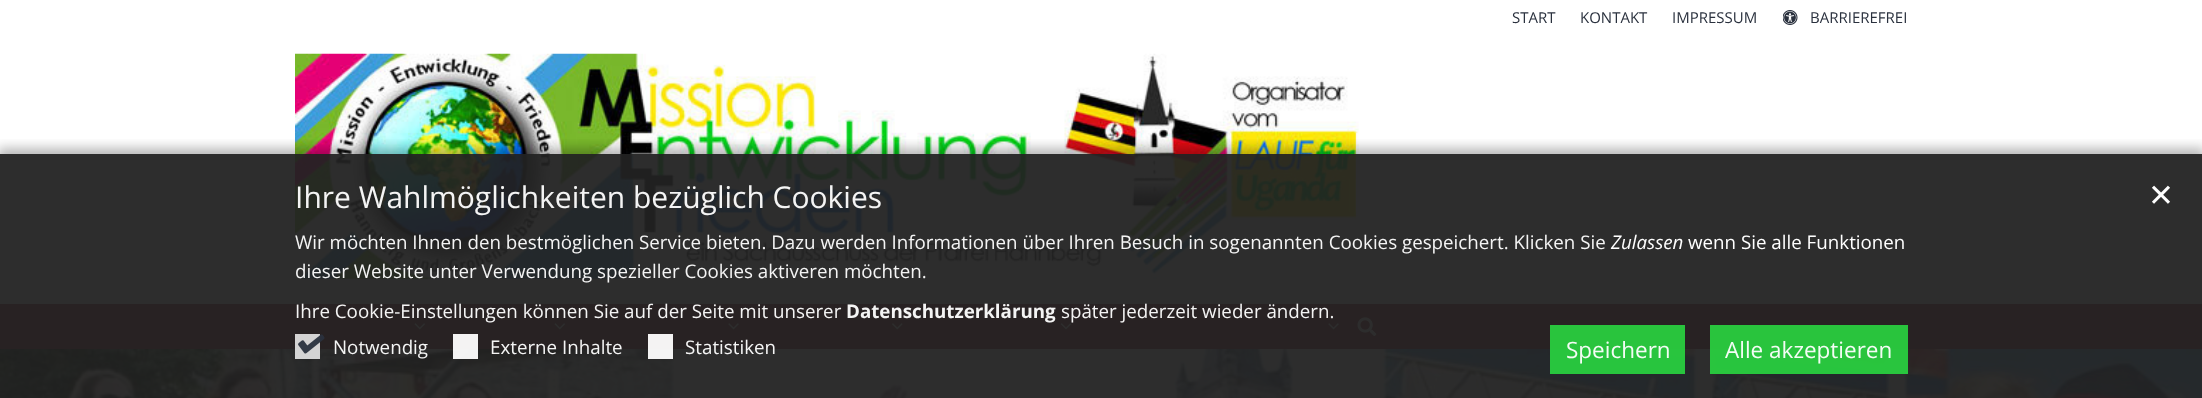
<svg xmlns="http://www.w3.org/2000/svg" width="2202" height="398">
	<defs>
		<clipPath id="clip1"><rect x="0" y="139" width="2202" height="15" /></clipPath>
	</defs>
	<rect width="100%" height="100%" fill="#FFFFFF" />
	<g font-family="Open Sans" font-size="15" fill="#2A313E">
		<text x="1512" y="23">START</text>
		<text x="1580" y="23">KONTAKT</text>
		<text x="1672" y="23">IMPRESSUM</text>
	</g>
	<image x="1783" y="10" width="15" height="15" href="assets/img1.png" />
	<text x="1810" y="23" font-family="Open Sans" font-size="15" fill="#2A313E">BARRIEREFREI</text>
	<image x="295" y="53" width="1064" height="226" href="assets/img2.png" />
	<rect x="0" y="304" width="2202" height="45" fill="#99333E" />
	<image x="414" y="323" width="11" height="7" href="assets/img3.png" />
	<image x="554" y="323" width="11" height="7" href="assets/img3.png" />
	<image x="728" y="323" width="11" height="7" href="assets/img4.png" />
	<image x="892" y="323" width="11" height="7" href="assets/img5.png" />
	<image x="1060" y="323" width="12" height="7" href="assets/img6.png" />
	<image x="1328" y="323" width="11" height="7" href="assets/img4.png" />
	<image x="1357" y="317" width="20" height="19" href="assets/img7.png" />
	<image x="0" y="349" width="2202" height="49" href="assets/img8.png" />
	<g clip-path="url(#clip1)">
		<rect x="-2" y="148" width="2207" height="250" fill="#000000" fill-opacity="0.28" filter="blur(6px)" />
	</g>
	<rect x="0" y="154" width="2202" height="244" fill="#222222" fill-opacity="0.95" />
	<text x="295" y="208" font-family="Open Sans" font-size="30" fill="#F4F4F4">Ihre Wahlmöglichkeiten bezüglich Cookies</text>
	<text x="2148" y="206" font-family="DejaVu Sans" font-size="31" fill="#FFFFFF">✕</text>
	<text x="295" y="249" font-family="Open Sans" font-size="18.75" fill="#F4F4F4">Wir möchten Ihnen den bestmöglichen Service bieten. Dazu werden Informationen über Ihren Besuch in sogenannten Cookies gespeichert. Klicken Sie</text>
	<text x="1611" y="249" font-family="Open Sans" font-size="18.75" font-style="italic" fill="#FFFFFF">Zulassen</text>
	<text x="1688" y="249" font-family="Open Sans" font-size="18.75" fill="#FFFFFF">wenn Sie alle Funktionen</text>
	<g font-family="Open Sans" font-size="18.75" fill="#F4F4F4">
		<text x="295" y="278">dieser Website unter Verwendung spezieller Cookies aktiveren möchten.</text>
		<text x="295" y="318">Ihre Cookie-Einstellungen können Sie auf der Seite mit unserer</text>
	</g>
	<text x="846" y="318" font-family="Open Sans" font-size="18.75" font-weight="700" fill="#F4F4F4">Datenschutzerklärung</text>
	<text x="1061" y="318" font-family="Open Sans" font-size="18.75" fill="#F4F4F4">später jederzeit wieder ändern.</text>
	<rect x="295" y="334" width="25" height="25" fill="#DDDDDD" fill-opacity="0.95" />
	<image x="298" y="334" width="27" height="20" href="assets/img9.png" />
	<text x="333" y="354" font-family="Open Sans" font-size="18.75" fill="#F4F4F4">Notwendig</text>
	<rect x="453" y="334" width="25" height="25" fill="#FFFFFF" fill-opacity="0.95" />
	<text x="490" y="354" font-family="Open Sans" font-size="18.75" fill="#F4F4F4">Externe Inhalte</text>
	<rect x="648" y="334" width="25" height="25" fill="#FFFFFF" fill-opacity="0.95" />
	<text x="685" y="354" font-family="Open Sans" font-size="18.75" fill="#F4F4F4">Statistiken</text>
	<rect x="1550" y="325" width="135" height="49" fill="#29CE3F" fill-opacity="0.95" />
	<text x="1566" y="358" font-family="Open Sans" font-size="22.5" fill="#F4FCF5">Speichern</text>
	<rect x="1710" y="325" width="198" height="49" fill="#29CE3F" fill-opacity="0.95" />
	<text x="1725" y="358" font-family="Open Sans" font-size="22.5" fill="#F4FCF5">Alle akzeptieren</text>
</svg>
